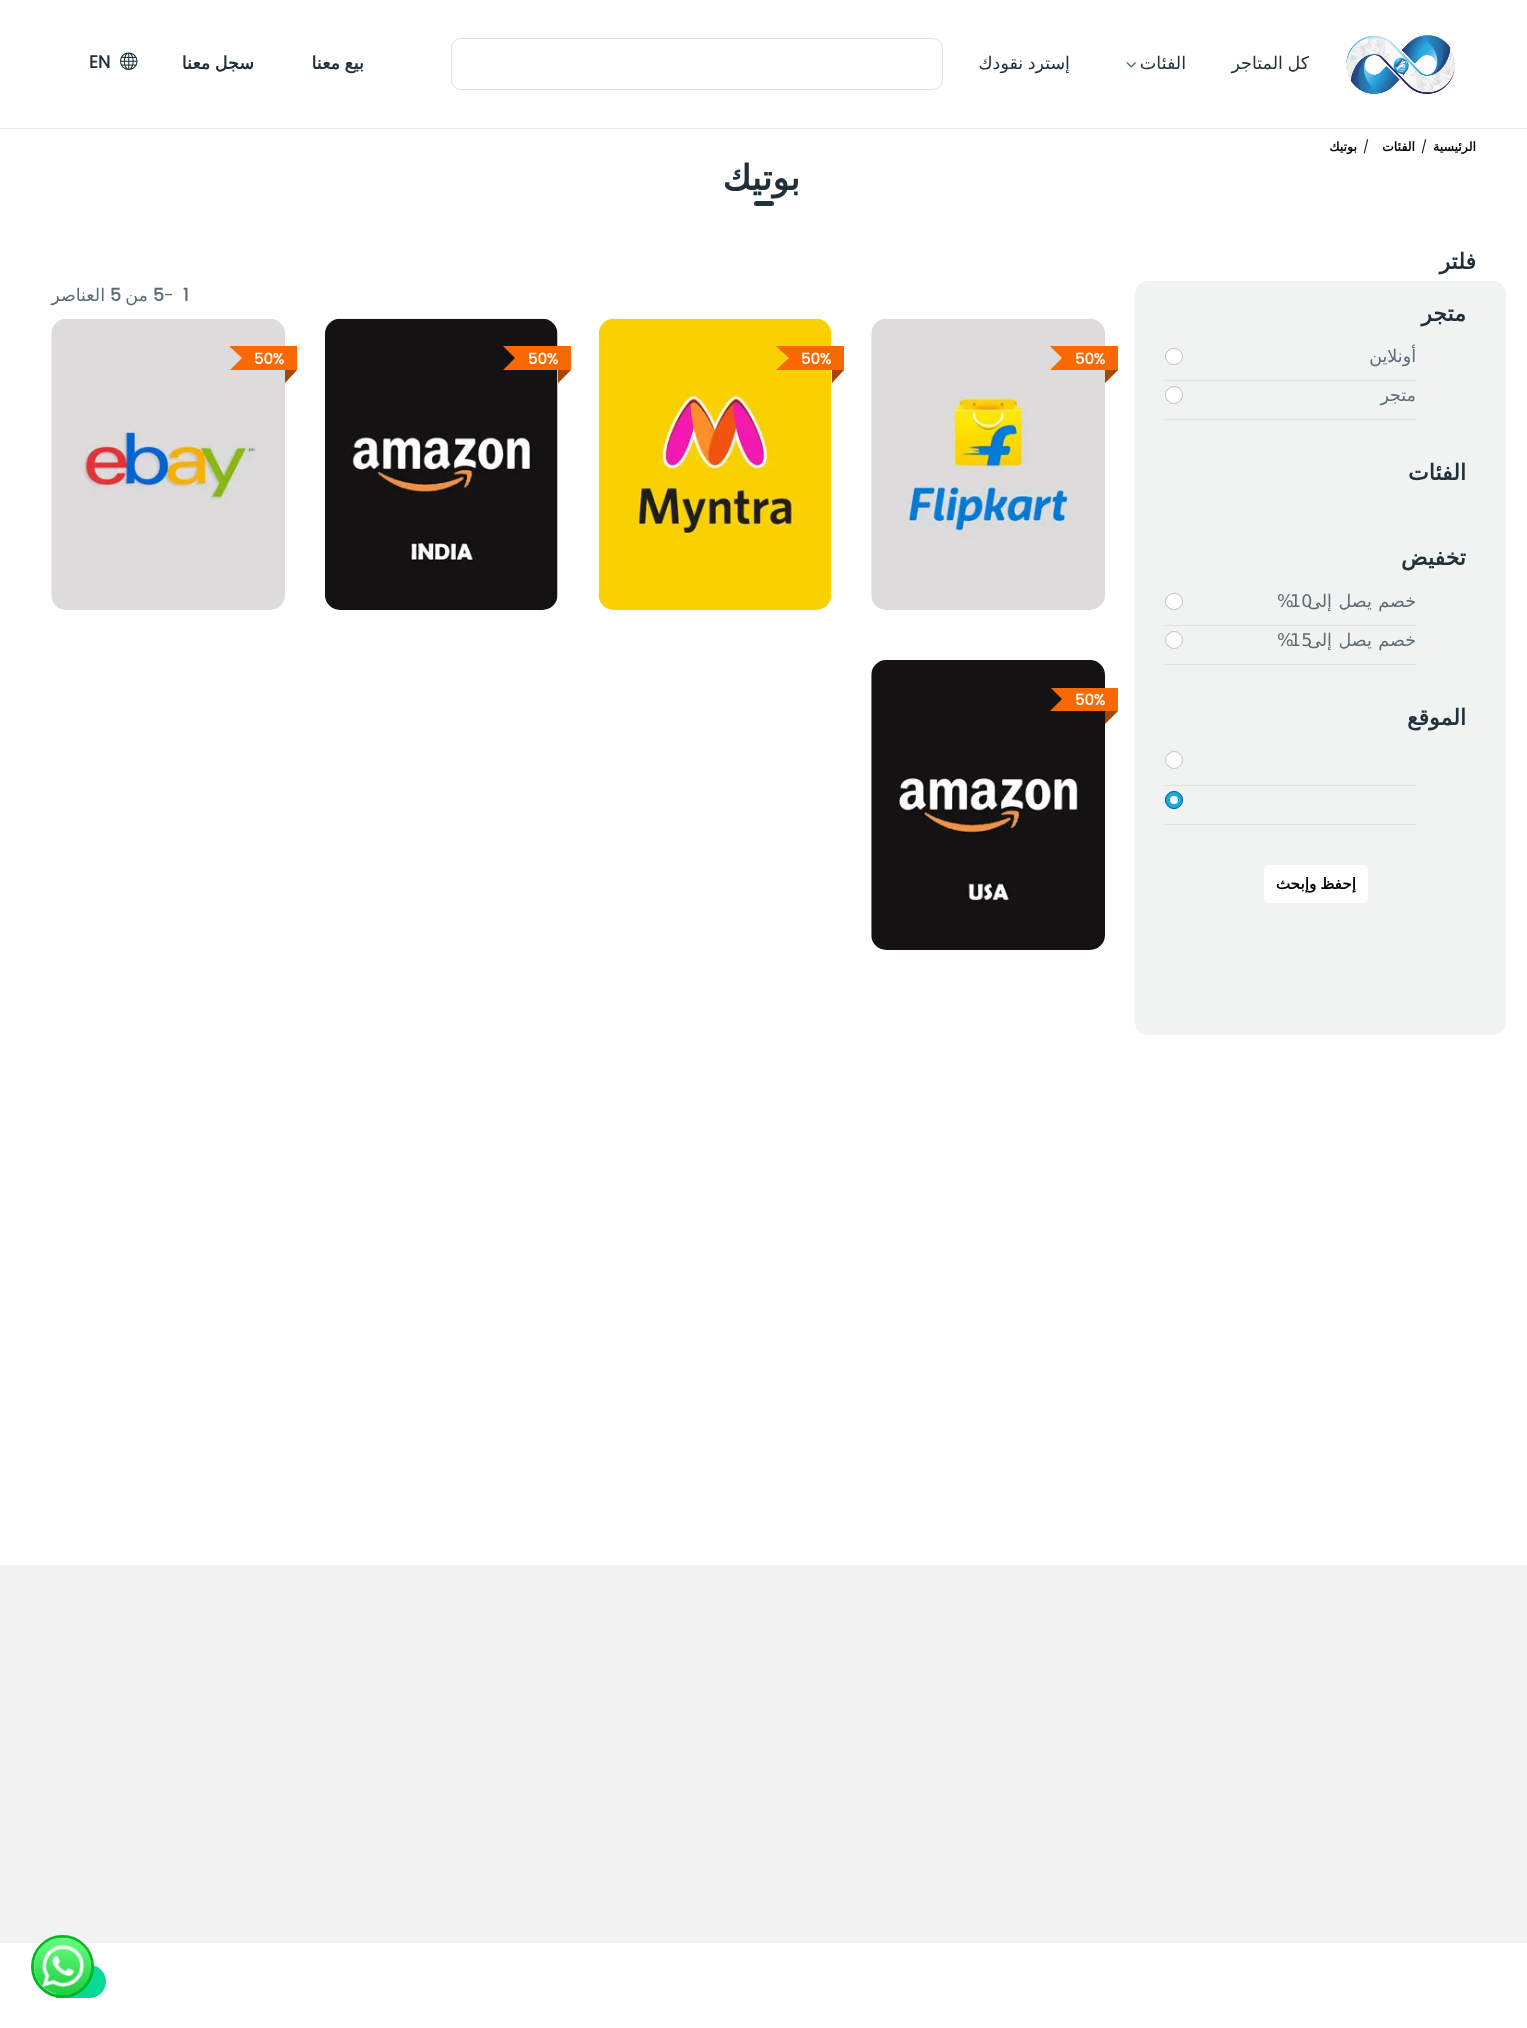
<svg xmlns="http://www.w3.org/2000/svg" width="1527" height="2028">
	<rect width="100%" height="100%" fill="#FFFFFF" />
	<rect x="0" y="128" width="1527" height="1" fill="#E6E6E6" />
	<image x="1346" y="35" width="109" height="59" href="assets/img1.png" />
	<g font-family="DejaVu Sans" font-size="17.5" direction="rtl" fill="#21313C">
		<text x="1309" y="69" word-spacing="-1">كل المتاجر</text>
		<text x="1186" y="69">الفئات</text>
	</g>
	<image x="1126" y="62" width="10" height="6" href="assets/img2.png" />
	<text x="1070" y="69" word-spacing="-1" font-family="DejaVu Sans" font-size="17.5" direction="rtl" fill="#21313C">إسترد نقودك</text>
	<rect x="451.5" y="38.5" width="491" height="51" rx="9.5" fill="none" stroke="#E0DFE2" />
	<g font-family="DejaVu Sans" font-size="17.5" font-weight="700" direction="rtl" fill="#21313C">
		<text x="364" y="69" word-spacing="-1">بيع معنا</text>
		<text x="254" y="69" word-spacing="-1">سجل معنا</text>
	</g>
	<image x="120" y="52" width="18" height="18" href="assets/img3.png" />
	<text x="89" y="68" font-family="Poppins" font-size="17.5" font-weight="700" fill="#21313C">EN</text>
	<text x="1476" y="151" font-family="DejaVu Sans" font-size="12.5" font-weight="700" direction="rtl" fill="#000000">الرئيسية</text>
	<text x="1421" y="151" font-family="Poppins" font-size="12.5" fill="#001532">/</text>
	<text x="1415" y="151" font-family="DejaVu Sans" font-size="12.5" font-weight="700" direction="rtl" fill="#000000">الفئات</text>
	<text x="1363" y="151" font-family="Poppins" font-size="12.5" fill="#001532">/</text>
	<text x="1357" y="151" font-family="DejaVu Sans" font-size="12.5" font-weight="700" direction="rtl" fill="#000000">بوتيك</text>
	<text x="800" y="190" font-family="DejaVu Sans" font-size="35" font-weight="700" letter-spacing="-0.5" direction="rtl" fill="#21313C">بوتيك</text>
	<rect x="754" y="201" width="20" height="5" rx="2.5" fill="#21313C" />
	<text x="1476" y="269" font-family="DejaVu Sans" font-size="22" font-weight="700" direction="rtl" fill="#21313C">فلتر</text>
	<rect x="1135" y="281" width="371" height="754" rx="13" fill="#F0F3F2" />
	<text x="1466" y="321" font-family="DejaVu Sans" font-size="22" font-weight="700" direction="rtl" fill="#21313C">متجر</text>
	<rect x="1165" y="380" width="251" height="1" fill="#DFE2E1" />
	<text x="1416" y="362" font-family="DejaVu Sans" font-size="17.5" direction="rtl" fill="#5C6C75">أونلاين</text>
	<rect x="1165" y="348" width="18" height="17" rx="8.5" fill="#FFFFFF" />
	<rect x="1165.5" y="348.5" width="17" height="16" rx="8" fill="none" stroke="#000000" stroke-opacity="0.25" />
	<rect x="1165" y="419" width="251" height="1" fill="#DFE2E1" />
	<text x="1416" y="401" font-family="DejaVu Sans" font-size="17.5" direction="rtl" fill="#5C6C75">متجر</text>
	<circle cx="1174" cy="395" r="9" fill="#FFFFFF" />
	<circle cx="1174" cy="395" r="8.5" fill="none" stroke="#000000" stroke-opacity="0.25" />
	<g font-family="DejaVu Sans" font-size="22" font-weight="700" direction="rtl" fill="#21313C">
		<text x="1466" y="480">الفئات</text>
		<text x="1466" y="565">تخفيض</text>
	</g>
	<rect x="1165" y="625" width="251" height="1" fill="#DFE2E1" />
	<g font-family="DejaVu Sans" font-size="17.5" fill="#5C6C75">
		<text x="1277" y="607">%</text>
		<text x="1290" y="607">10</text>
	</g>
	<text x="1416" y="607" word-spacing="1" font-family="DejaVu Sans" font-size="17.5" direction="rtl" fill="#5C6C75">خصم يصل إلى</text>
	<rect x="1165" y="593" width="18" height="17" rx="8.5" fill="#FFFFFF" />
	<rect x="1165.5" y="593.5" width="17" height="16" rx="8" fill="none" stroke="#000000" stroke-opacity="0.25" />
	<rect x="1165" y="664" width="251" height="1" fill="#DFE2E1" />
	<g font-family="DejaVu Sans" font-size="17.5" fill="#5C6C75">
		<text x="1277" y="646">%</text>
		<text x="1290" y="646">15</text>
	</g>
	<text x="1416" y="646" word-spacing="1" font-family="DejaVu Sans" font-size="17.5" direction="rtl" fill="#5C6C75">خصم يصل إلى</text>
	<circle cx="1174" cy="640" r="9" fill="#FFFFFF" />
	<circle cx="1174" cy="640" r="8.5" fill="none" stroke="#000000" stroke-opacity="0.25" />
	<text x="1466" y="725" font-family="DejaVu Sans" font-size="22" font-weight="700" direction="rtl" fill="#21313C">الموقع</text>
	<rect x="1165" y="785" width="251" height="1" fill="#DFE2E1" />
	<circle cx="1174" cy="760" r="9" fill="#FFFFFF" />
	<circle cx="1174" cy="760" r="8.5" fill="none" stroke="#000000" stroke-opacity="0.25" />
	<rect x="1165" y="824" width="251" height="1" fill="#DFE2E1" />
	<circle cx="1174" cy="800" r="9" fill="#1CAAE2" />
	<circle cx="1174" cy="800" r="4" fill="#FFFFFF" />
	<circle cx="1174" cy="800" r="8.5" fill="none" stroke="#00658D" />
	<rect x="1264.5" y="865.5" width="103" height="37" rx="4.5" fill="#FFFFFF" stroke="#FFFFFF" />
	<text x="1356" y="889" word-spacing="-1" font-family="DejaVu Sans" font-size="15.25" font-weight="700" direction="rtl" fill="#000000">إحفظ وإبحث</text>
	<text x="183" y="301" font-family="Poppins" font-size="17.5" font-weight="700" fill="#5C6C75">1</text>
	<text x="164" y="301" font-family="Poppins" font-size="17.5" fill="#5C6C75">-</text>
	<g font-family="Poppins" font-size="17.5" font-weight="700" fill="#5C6C75">
		<text x="153" y="301">5</text>
		<text x="110" y="301">5</text>
	</g>
	<g font-family="DejaVu Sans" font-size="17.5" direction="rtl" fill="#5C6C75">
		<text x="105" y="301">العناصر</text>
		<text x="148" y="301">من</text>
	</g>
	<image x="871" y="319" width="234" height="291" href="assets/img4.png" />
	<path d="M1050 346H1118V370L1105 383V370H1050L1062 358Z" fill="#FA6900" />
	<path d="M1050 370H1118L1105 383V370Z" fill="#000000" fill-opacity="0.33" />
	<text x="1075" y="364" font-family="Poppins" font-size="15" font-weight="700" fill="#FFFFFF">50%</text>
	<image x="598" y="318" width="234" height="292" href="assets/img5.png" />
	<path d="M776 346H844V370L832 383V370H776L789 358Z" fill="#FA6900" />
	<path d="M844 370L832 383V370H776Z" fill="#000000" fill-opacity="0.33" />
	<text x="801" y="364" font-family="Poppins" font-size="15" font-weight="700" fill="#FFFFFF">50%</text>
	<image x="325" y="318" width="233" height="292" href="assets/img6.png" />
	<path d="M503 346H571V370L558 383V370H503L515 358Z" fill="#FA6900" />
	<path d="M503 370H571L558 383V370Z" fill="#000000" fill-opacity="0.33" />
	<text x="528" y="364" font-family="Poppins" font-size="15" font-weight="700" fill="#FFFFFF">50%</text>
	<image x="51" y="319" width="234" height="291" href="assets/img7.png" />
	<path d="M230 347V346H297V370L285 383V370H230L242 358Z" fill="#FA6900" />
	<path d="M230 370H297L285 383V370Z" fill="#000000" fill-opacity="0.33" />
	<text x="254" y="364" font-family="Poppins" font-size="15" font-weight="700" fill="#FFFFFF">50%</text>
	<image x="871" y="660" width="234" height="290" href="assets/img8.png" />
	<path d="M1050 711L1062 699L1051 688H1118V711L1105 724V711Z" fill="#FA6900" />
	<path d="M1050 711H1118L1105 724V711Z" fill="#000000" fill-opacity="0.33" />
	<text x="1075" y="705" font-family="Poppins" font-size="15" font-weight="700" fill="#FFFFFF">50%</text>
	<rect x="0" y="1565" width="1527" height="378" fill="#F2F2F2" />
	<path d="M56 1965H89.5C98.5 1965 106 1972.5 106 1981.5C106 1990.5 98.5 1998 89.5 1998H56Z" fill="#09DA99" />
	<circle cx="62.5" cy="1966.5" r="30" fill="none" stroke="#00B720" stroke-width="3" />
	<image x="33" y="1937" width="59" height="58" href="assets/img9.png" />
</svg>
